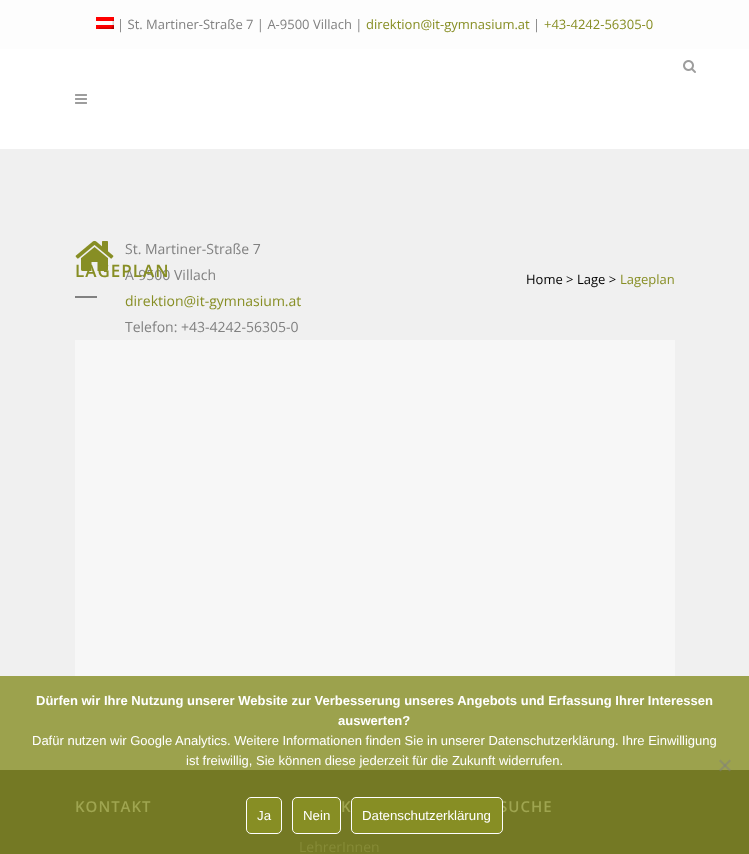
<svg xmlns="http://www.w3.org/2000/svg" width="749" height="854">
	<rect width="100%" height="100%" fill="#F0F0F0" />
	<rect x="0" y="0" width="749" height="49" fill="#FDFDFD" />
	<image x="96" y="17" width="18" height="12" href="assets/img1.png" />
	<text x="117" y="29" font-family="Open Sans" font-size="13" fill="#818181">| St. Martiner-Straße 7 | A-9500 Villach |</text>
	<text x="366" y="29" font-family="Open Sans" font-size="13" fill="#878E24">direktion@it-gymnasium.at</text>
	<text x="533" y="29" font-family="Open Sans" font-size="13" fill="#818181">|</text>
	<text x="544" y="29" font-family="Open Sans" font-size="13" fill="#878E24">+43-4242-56305-0</text>
	<rect x="0" y="49" width="749" height="100" fill="#FFFFFF" />
	<image x="683" y="60" width="13" height="13" href="assets/img2.png" />
	<image x="75" y="94" width="12" height="10" href="assets/img3.png" />
	<rect x="0" y="676" width="749" height="94" fill="#9CA24D" />
	<image x="75" y="240" width="39" height="31" href="assets/img4.png" />
	<g font-family="Open Sans" font-size="14" fill="#818181">
		<text x="125" y="254">St. Martiner-Straße 7</text>
		<text x="125" y="280">A-9500 Villach</text>
	</g>
	<text x="125" y="306" font-family="Open Sans" font-size="14" fill="#878E24">direktion@it-gymnasium.at</text>
	<text x="125" y="332" font-family="Open Sans" font-size="14" fill="#818181">Telefon: +43-4242-56305-0</text>
	<rect x="75" y="340" width="600" height="336" fill="#F7F7F7" />
	<text x="75" y="277" font-family="Open Sans" font-size="17" font-weight="600" letter-spacing="1" fill="#878E24">LAGEPLAN</text>
	<text x="526" y="284" font-family="Open Sans" font-size="13" fill="#000000">Home &gt; Lage &gt;</text>
	<text x="620" y="284" font-family="Open Sans" font-size="13" fill="#878E24">Lageplan</text>
	<rect x="75" y="296" width="22" height="2" fill="#818181" />
	<rect x="0" y="770" width="749" height="84" fill="#747924" />
	<g font-family="Open Sans" font-size="15" font-weight="600" letter-spacing="1" fill="#9FA550">
		<text x="75" y="812">KONTAKT</text>
		<text x="341" y="812">K</text>
	</g>
	<text x="299" y="852" font-family="Open Sans" font-size="14" fill="#868B37">LehrerInnen</text>
	<text x="499" y="812" font-family="Open Sans" font-size="15" font-weight="600" letter-spacing="1" fill="#9FA550">SUCHE</text>
	<g font-family="Liberation Sans" font-size="13" font-weight="700" fill="#FFFFFF">
		<text x="36" y="705">Dürfen wir Ihre Nutzung unserer Website zur Verbesserung unseres Angebots und Erfassung Ihrer Interessen</text>
		<text x="338" y="725">auswerten?</text>
	</g>
	<g font-family="Liberation Sans" font-size="13" fill="#FFFFFF">
		<text x="32" y="745">Dafür nutzen wir Google Analytics. Weitere Informationen finden Sie in unserer Datenschutzerklärung. Ihre Einwilligung</text>
		<text x="186" y="765">ist freiwillig, Sie können diese jederzeit für die Zukunft widerrufen.</text>
	</g>
	<path d="M729.5 759.5L731 761L720.5 771.5L719 770Z" fill="#808080" fill-opacity="0.5" />
	<path d="M719 761L720.5 759.5L731 770L729.5 771.5Z" fill="#808080" fill-opacity="0.5" />
	<rect x="246.5" y="797.5" width="35" height="36" rx="4.5" fill="#878E24" stroke="#FFFFFF" />
	<text x="257" y="820" font-family="Liberation Sans" font-size="13.25" fill="#FFFFFF">Ja</text>
	<rect x="292.5" y="797.5" width="48" height="36" rx="4.5" fill="#878E24" stroke="#FFFFFF" />
	<text x="303" y="820" font-family="Liberation Sans" font-size="13.25" fill="#FFFFFF">Nein</text>
	<rect x="351.5" y="797.5" width="151" height="36" rx="4.5" fill="#878E24" stroke="#FFFFFF" />
	<text x="362" y="820" font-family="Liberation Sans" font-size="13.25" fill="#FFFFFF">Datenschutzerklärung</text>
</svg>
